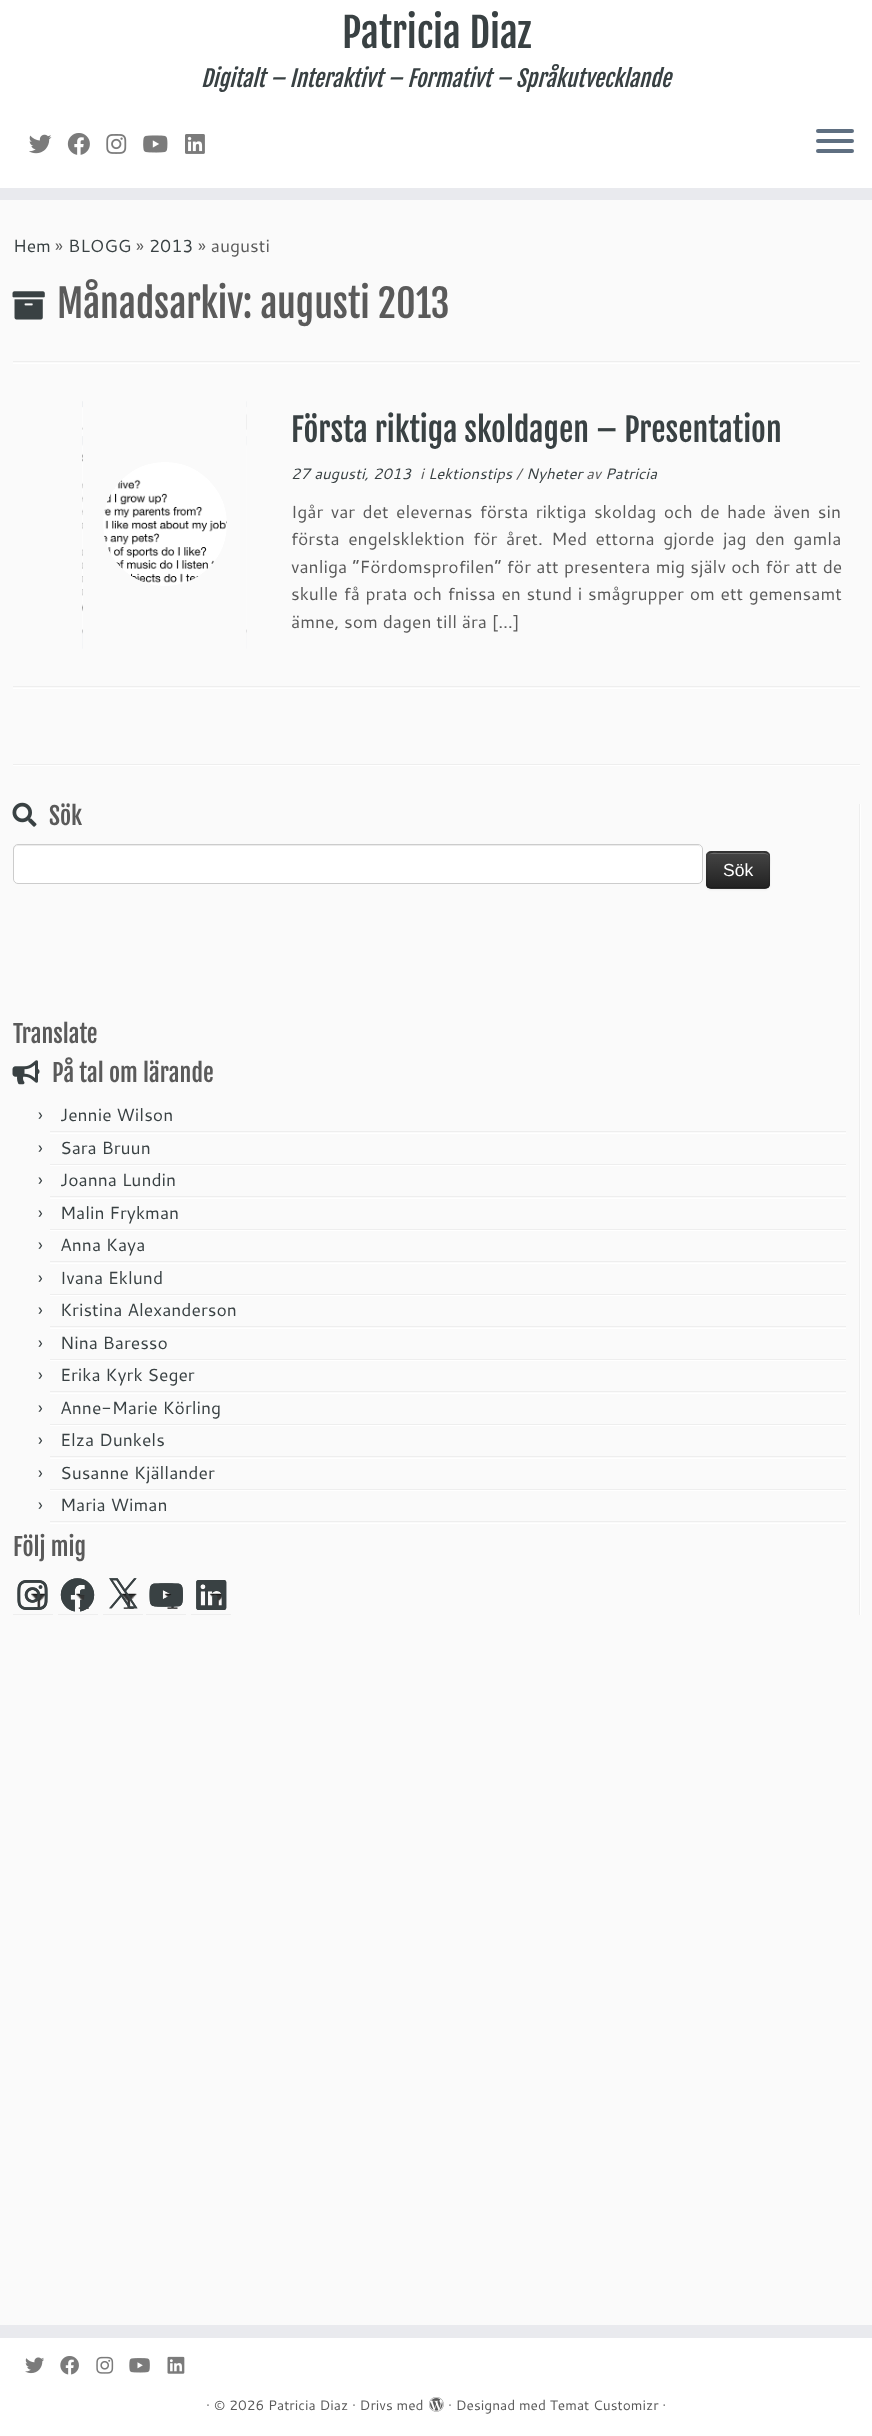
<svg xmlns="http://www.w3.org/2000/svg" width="872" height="2436">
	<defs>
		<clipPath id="clip1"><rect x="83" y="401" width="163" height="250" /></clipPath>
		<clipPath id="clip2"><rect x="706" y="851" width="64" height="38" rx="5" /></clipPath>
		<linearGradient id="g1" gradientUnits="userSpaceOnUse" x1="738" y1="853" x2="738" y2="888"><stop offset="0" stop-color="#444444" /><stop offset="1" stop-color="#222222" /></linearGradient>
	</defs>
	<rect width="100%" height="100%" fill="#FAFAFA" />
	<rect x="0" y="0" width="872" height="188" fill="#FFFFFF" />
	<rect x="0" y="188" width="872" height="12" fill="#E9EAEE" />
	<text x="342" y="48" font-family="Fjalla One" font-size="40" fill="#394143">Patricia Diaz</text>
	<text x="201" y="87" font-family="Fjalla One" font-size="22.5" font-style="italic" fill="#394143">Digitalt – Interaktivt – Formativt – Språkutvecklande</text>
	<image x="29" y="134" width="23" height="20" href="assets/img1.png" />
	<image x="67" y="133" width="23" height="22" href="assets/img2.png" />
	<image x="106" y="134" width="21" height="20" href="assets/img3.png" />
	<image x="143" y="135" width="25" height="18" href="assets/img4.png" />
	<image x="185" y="134" width="20" height="20" href="assets/img5.png" />
	<rect x="816" y="129" width="38" height="4" rx="2" fill="#5F6F81" />
	<rect x="816" y="139" width="38" height="4" rx="2" fill="#5F6F81" />
	<rect x="816" y="149" width="38" height="4" rx="2" fill="#5F6F81" />
	<text x="13" y="252" font-family="Cantarell" font-size="17.5" fill="#394143">Hem</text>
	<text x="55" y="252" font-family="Cantarell" font-size="17.5" fill="#5A5A5A">»</text>
	<text x="68" y="252" font-family="Cantarell" font-size="17.5" fill="#394143">BLOGG</text>
	<text x="136" y="252" font-family="Cantarell" font-size="17.5" fill="#5A5A5A">»</text>
	<text x="149" y="252" font-family="Cantarell" font-size="17.5" fill="#394143">2013</text>
	<text x="198" y="252" font-family="Cantarell" font-size="17.5" fill="#5A5A5A">» augusti</text>
	<image x="12" y="291" width="33" height="29" href="assets/img6.png" />
	<text x="57" y="318" font-family="Fjalla One" font-size="38" fill="#5A5A5A">Månadsarkiv: augusti 2013</text>
	<rect x="13" y="361" width="847" height="1" fill="#EEEEEE" />
	<rect x="13" y="363" width="847" height="1" fill="#FFFFFF" />
	<image x="82" y="401" width="165" height="248" href="assets/img7.png" />
	<text x="291" y="442" font-family="Fjalla One" font-size="32" fill="#394143">Första riktiga skoldagen – Presentation</text>
	<text x="291" y="479" font-family="Cantarell" font-size="15" font-style="italic" fill="#394143">27 augusti, 2013</text>
	<g font-family="Cantarell" font-size="17.5" fill="#5A5A5A">
		<text x="291" y="518" word-spacing="2.6">Igår var det elevernas första riktiga skoldag och de hade även sin</text>
		<text x="291" y="545" word-spacing="3.75">första engelsklektion för året. Med ettorna gjorde jag den gamla</text>
		<text x="291" y="573" word-spacing="0.5">vanliga ”Fördomsprofilen” för att presentera mig själv och för att de</text>
		<text x="291" y="600" word-spacing="0.9">skulle få prata och fnissa en stund i smågrupper om ett gemensamt</text>
		<text x="291" y="628">ämne, som dagen till ära […]</text>
	</g>
	<rect x="13" y="686" width="847" height="1" fill="#EEEEEE" />
	<rect x="13" y="688" width="847" height="1" fill="#FFFFFF" />
	<g clip-path="url(#clip1)">
		<circle cx="165" cy="524" r="121" fill="none" stroke="#FAFAFA" stroke-width="118" />
		<circle cx="165" cy="524" r="121" fill="none" stroke="#FAFAFA" stroke-width="118" />
	</g>
	<text x="420" y="479" font-family="Cantarell" font-size="15" font-style="italic" fill="#5A5A5A">i</text>
	<text x="428" y="479" font-family="Cantarell" font-size="15" font-style="italic" fill="#394143">Lektionstips</text>
	<text x="516" y="479" font-family="Cantarell" font-size="15" font-style="italic" fill="#5A5A5A">/</text>
	<text x="526" y="479" font-family="Cantarell" font-size="15" font-style="italic" fill="#394143">Nyheter</text>
	<text x="586" y="479" font-family="Cantarell" font-size="15" font-style="italic" fill="#5A5A5A">av</text>
	<text x="605" y="479" font-family="Cantarell" font-size="15" font-style="italic" fill="#394143">Patricia</text>
	<rect x="13" y="764" width="847" height="1" fill="#EEEEEE" />
	<rect x="13" y="765" width="847" height="1" fill="#FFFFFF" />
	<rect x="859" y="804" width="1" height="811" fill="#EEEEEE" />
	<image x="12" y="802" width="25" height="25" href="assets/img8.png" />
	<text x="49" y="825" font-family="Fjalla One" font-size="24" fill="#5A5A5A">Sök</text>
	<rect x="13" y="844" width="690" height="40" rx="5" fill="#FFFFFF" />
	<path d="M18 846H698C700 846 701 848 701 850C701 847 700 845 697 845H18L15 846L14 847V850C14 848 15 846 18 846Z" fill="#ECECEC" />
	<rect x="13.5" y="844.5" width="689" height="39" rx="4.5" fill="none" stroke="#CCCCCC" />
	<rect x="706" y="853" width="64" height="37" rx="5" fill="#000000" fill-opacity="0.05" filter="blur(1px)" />
	<rect x="706" y="851" width="64" height="38" rx="5" fill="#363636" />
	<g clip-path="url(#clip2)">
		<rect x="706" y="853" width="64" height="35" fill="url(#g1)" />
	</g>
	<path d="M711 854H765C767 854 769 855 769 858C769 851 761 853 756 853H721C716 853 708 851 708 858C708 855 709 854 711 854Z" fill="#696969" />
	<path d="M768 887C767.5 887.5 766 888 765 888H711C710 888 709 887.5 708 887" fill="none" stroke="#000000" stroke-opacity="0.25" stroke-width="1.2" />
	<path d="M708 887C706 885 707 881.5 707 879V870C707 852 703.5 852 720 852H756C773 852 769.5 852 769.5 870V879C769.5 881.5 770 885 768 887" fill="none" stroke="#000000" stroke-opacity="0.1" stroke-width="1.2" />
	<text x="723" y="876" font-family="Liberation Sans" font-size="17.5" fill="#FFFFFF">Sök</text>
	<rect x="860" y="804" width="1" height="811" fill="#FFFFFF" />
	<text x="13" y="1043" font-family="Fjalla One" font-size="24" fill="#5A5A5A">Translate</text>
	<image x="12" y="1060" width="28" height="25" href="assets/img9.png" />
	<text x="52" y="1082" font-family="Fjalla One" font-size="24" fill="#5A5A5A">På tal om lärande</text>
	<rect x="50" y="1131" width="796" height="1" fill="#EEEEEE" />
	<g font-family="Cantarell" font-size="17.5" fill="#394143">
		<text x="38" y="1121">›</text>
		<text x="60" y="1121">Jennie Wilson</text>
	</g>
	<rect x="50" y="1133" width="796" height="1" fill="#FFFFFF" />
	<rect x="50" y="1164" width="796" height="1" fill="#EEEEEE" />
	<g font-family="Cantarell" font-size="17.5" fill="#394143">
		<text x="38" y="1154">›</text>
		<text x="60" y="1154">Sara Bruun</text>
	</g>
	<rect x="50" y="1165" width="796" height="1" fill="#FFFFFF" />
	<rect x="50" y="1196" width="796" height="1" fill="#EEEEEE" />
	<g font-family="Cantarell" font-size="17.5" fill="#394143">
		<text x="38" y="1186">›</text>
		<text x="60" y="1186">Joanna Lundin</text>
	</g>
	<rect x="50" y="1198" width="796" height="1" fill="#FFFFFF" />
	<rect x="50" y="1229" width="796" height="1" fill="#EEEEEE" />
	<g font-family="Cantarell" font-size="17.5" fill="#394143">
		<text x="38" y="1219">›</text>
		<text x="60" y="1219">Malin Frykman</text>
	</g>
	<rect x="50" y="1230" width="796" height="1" fill="#FFFFFF" />
	<rect x="50" y="1261" width="796" height="1" fill="#EEEEEE" />
	<g font-family="Cantarell" font-size="17.5" fill="#394143">
		<text x="38" y="1251">›</text>
		<text x="60" y="1251">Anna Kaya</text>
	</g>
	<rect x="50" y="1263" width="796" height="1" fill="#FFFFFF" />
	<rect x="50" y="1294" width="796" height="1" fill="#EEEEEE" />
	<g font-family="Cantarell" font-size="17.5" fill="#394143">
		<text x="38" y="1284">›</text>
		<text x="60" y="1284">Ivana Eklund</text>
	</g>
	<rect x="50" y="1295" width="796" height="1" fill="#FFFFFF" />
	<rect x="50" y="1326" width="796" height="1" fill="#EEEEEE" />
	<g font-family="Cantarell" font-size="17.5" fill="#394143">
		<text x="38" y="1316">›</text>
		<text x="60" y="1316">Kristina Alexanderson</text>
	</g>
	<rect x="50" y="1328" width="796" height="1" fill="#FFFFFF" />
	<rect x="50" y="1359" width="796" height="1" fill="#EEEEEE" />
	<g font-family="Cantarell" font-size="17.5" fill="#394143">
		<text x="38" y="1349">›</text>
		<text x="60" y="1349">Nina Baresso</text>
	</g>
	<rect x="50" y="1360" width="796" height="1" fill="#FFFFFF" />
	<rect x="50" y="1391" width="796" height="1" fill="#EEEEEE" />
	<g font-family="Cantarell" font-size="17.5" fill="#394143">
		<text x="38" y="1381">›</text>
		<text x="60" y="1381">Erika Kyrk Seger</text>
	</g>
	<rect x="50" y="1393" width="796" height="1" fill="#FFFFFF" />
	<rect x="50" y="1424" width="796" height="1" fill="#EEEEEE" />
	<g font-family="Cantarell" font-size="17.5" fill="#394143">
		<text x="38" y="1414">›</text>
		<text x="60" y="1414">Anne-Marie Körling</text>
	</g>
	<rect x="50" y="1425" width="796" height="1" fill="#FFFFFF" />
	<rect x="50" y="1456" width="796" height="1" fill="#EEEEEE" />
	<g font-family="Cantarell" font-size="17.5" fill="#394143">
		<text x="38" y="1446">›</text>
		<text x="60" y="1446">Elza Dunkels</text>
	</g>
	<rect x="50" y="1458" width="796" height="1" fill="#FFFFFF" />
	<rect x="50" y="1489" width="796" height="1" fill="#EEEEEE" />
	<g font-family="Cantarell" font-size="17.5" fill="#394143">
		<text x="38" y="1479">›</text>
		<text x="60" y="1479">Susanne Kjällander</text>
	</g>
	<rect x="50" y="1490" width="796" height="1" fill="#FFFFFF" />
	<rect x="50" y="1521" width="796" height="1" fill="#EEEEEE" />
	<g font-family="Cantarell" font-size="17.5" fill="#394143">
		<text x="38" y="1511">›</text>
		<text x="60" y="1511">Maria Wiman</text>
	</g>
	<rect x="50" y="1523" width="796" height="1" fill="#FFFFFF" />
	<text x="13" y="1556" font-family="Fjalla One" font-size="24" fill="#5A5A5A">Följ mig</text>
	<rect x="13" y="1614" width="40" height="1" fill="#EEEEEE" />
	<image x="17" y="1580" width="31" height="30" href="assets/img10.png" />
	<image x="17" y="1580" width="31" height="30" href="assets/img11.png" />
	<rect x="58" y="1614" width="40" height="1" fill="#EEEEEE" />
	<image x="60" y="1578" width="35" height="34" href="assets/img12.png" />
	<image x="60" y="1578" width="35" height="34" href="assets/img13.png" />
	<rect x="103" y="1614" width="40" height="1" fill="#EEEEEE" />
	<image x="109" y="1578" width="29" height="31" href="assets/img14.png" />
	<image x="109" y="1578" width="29" height="31" href="assets/img15.png" />
	<rect x="146" y="1614" width="40" height="1" fill="#EEEEEE" />
	<image x="149" y="1583" width="34" height="26" href="assets/img16.png" />
	<image x="149" y="1583" width="34" height="24" href="assets/img17.png" />
	<rect x="191" y="1614" width="40" height="1" fill="#EEEEEE" />
	<image x="196" y="1580" width="31" height="30" href="assets/img18.png" />
	<image x="196" y="1580" width="31" height="30" href="assets/img19.png" />
	<rect x="0" y="2325" width="872" height="13" fill="#E9EAEE" />
	<rect x="0" y="2338" width="872" height="98" fill="#FFFFFF" />
	<image x="25" y="2357" width="19" height="17" href="assets/img20.png" />
	<image x="60" y="2356" width="19" height="19" href="assets/img21.png" />
	<image x="96" y="2356" width="18" height="18" href="assets/img22.png" />
	<image x="129" y="2358" width="21" height="15" href="assets/img23.png" />
	<image x="167" y="2356" width="18" height="18" href="assets/img24.png" />
	<text x="206" y="2410" font-family="Cantarell" font-size="13.75" fill="#5A5A5A">· © 2026 Patricia Diaz · Drivs med</text>
	<image x="429" y="2397" width="15" height="15" href="assets/img25.png" />
	<text x="448" y="2410" font-family="Cantarell" font-size="13.75" fill="#5A5A5A">· Designad med Temat Customizr ·</text>
</svg>
